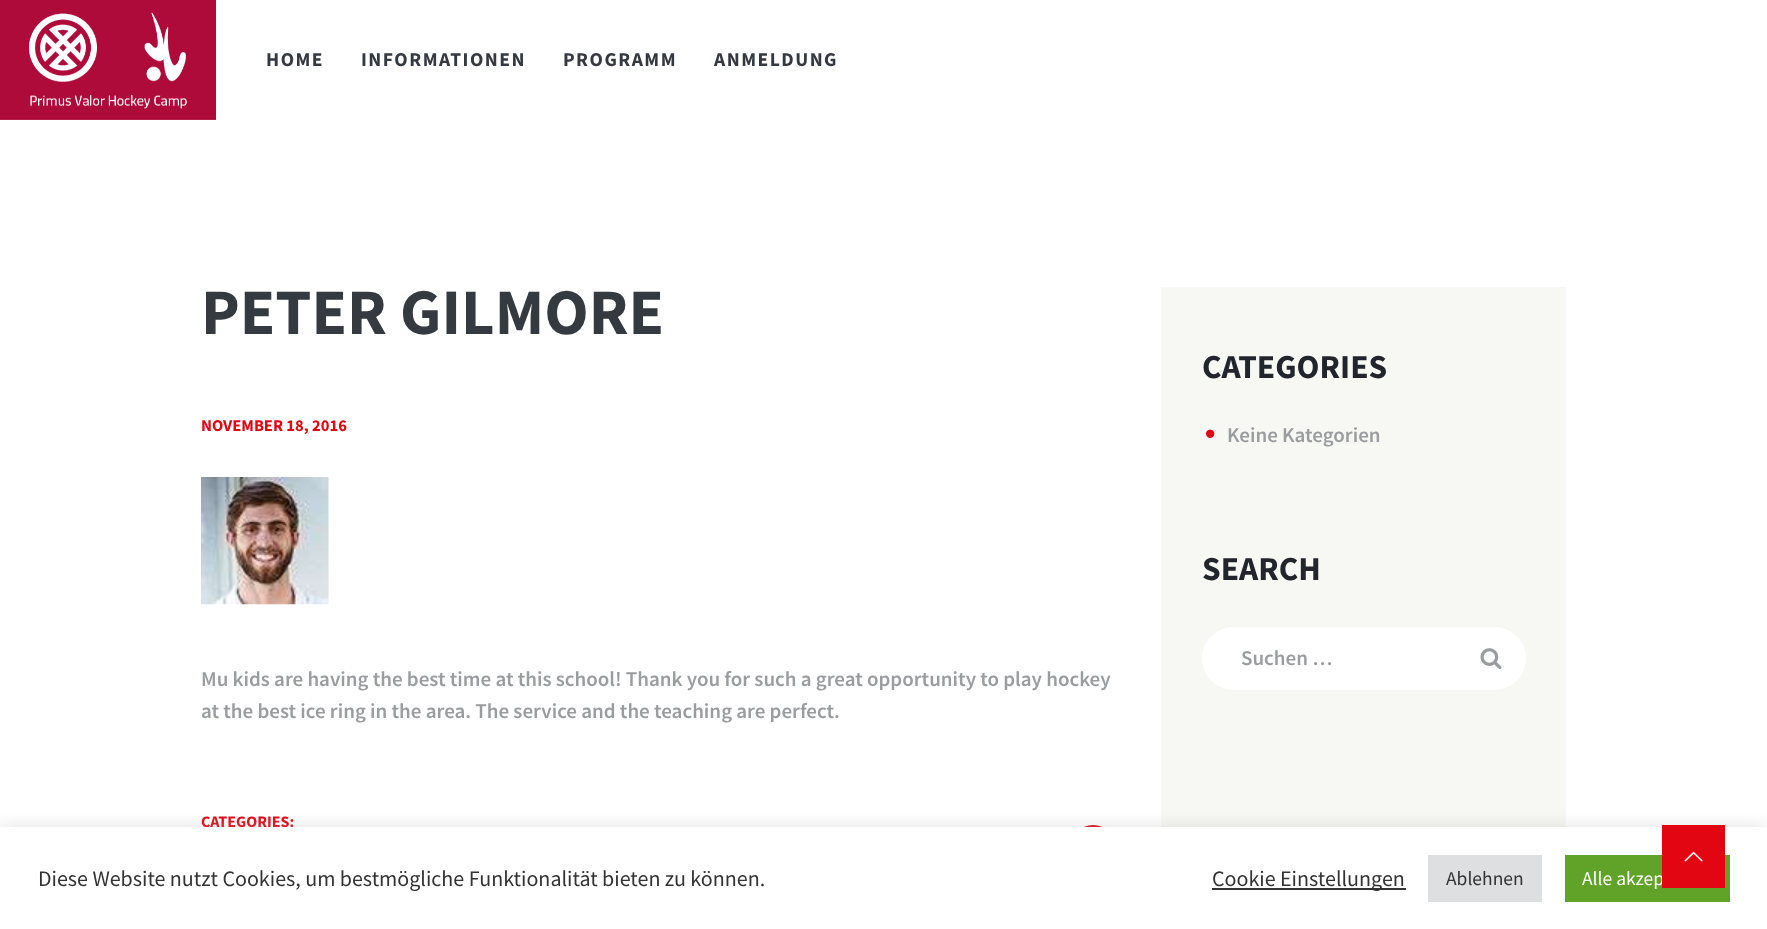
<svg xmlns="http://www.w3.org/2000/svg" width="1767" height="929">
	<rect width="100%" height="100%" fill="#FFFFFF" />
	<image x="0" y="0" width="216" height="120" href="assets/img1.png" />
	<g font-family="Source Sans Pro" font-size="19.5" font-weight="700" letter-spacing="1.5" fill="#353940">
		<text x="266" y="66">HOME</text>
		<text x="361" y="66">INFORMATIONEN</text>
		<text x="563" y="66">PROGRAMM</text>
		<text x="714" y="66">ANMELDUNG</text>
	</g>
	<text x="201" y="334" font-family="Source Sans Pro" font-size="65" font-weight="700" fill="#353940">PETER GILMORE</text>
	<text x="201" y="431" font-family="Source Sans Pro" font-size="16.5" font-weight="700" fill="#E20613">NOVEMBER 18, 2016</text>
	<image x="201" y="477" width="128" height="128" href="assets/img2.png" />
	<g font-family="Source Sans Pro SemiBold" font-size="21" font-weight="600" fill="#9A9C9F">
		<text x="201" y="686">Mu kids are having the best time at this school! Thank you for such a great opportunity to play hockey</text>
		<text x="201" y="718">at the best ice ring in the area. The service and the teaching are perfect.</text>
	</g>
	<text x="201" y="827" font-family="Source Sans Pro" font-size="16" font-weight="700" fill="#E20613">CATEGORIES:</text>
	<rect x="1070" y="825" width="46" height="47" rx="23" fill="#E20613" />
	<rect x="1161" y="287" width="405" height="540" fill="#F7F7F4" />
	<text x="1202" y="378" font-family="Source Sans Pro" font-size="33.5" font-weight="700" fill="#22252B">CATEGORIES</text>
	<image x="1206" y="429" width="9" height="9" href="assets/img3.png" />
	<text x="1227" y="442" font-family="Source Sans Pro SemiBold" font-size="21" font-weight="600" fill="#9A9C9F">Keine Kategorien</text>
	<text x="1202" y="580" font-family="Source Sans Pro" font-size="33.5" font-weight="700" fill="#22252B">SEARCH</text>
	<rect x="1202" y="627" width="324" height="63" rx="31.5" fill="#FFFFFF" />
	<text x="1241" y="665" font-family="Source Sans Pro SemiBold" font-size="21" font-weight="600" fill="#9A9C9F">Suchen …</text>
	<image x="1480" y="648" width="22" height="22" href="assets/img4.png" />
	<rect x="0" y="825" width="1767" height="104" fill="#ACABAB" fill-opacity="0.3" filter="blur(7.5px)" />
	<rect x="0" y="827" width="1767" height="102" fill="#FFFFFF" />
	<text x="38" y="886" font-family="Source Sans Pro" font-size="22" fill="#333333">Diese Website nutzt Cookies, um bestmögliche Funktionalität bieten zu können.</text>
	<rect x="1212" y="888" width="194" height="2" fill="#333333" />
	<text x="1212" y="886" font-family="Source Sans Pro" font-size="22" fill="#333333">Cookie Einstellungen</text>
	<rect x="1428" y="855" width="114" height="47" fill="#DEDFE0" />
	<text x="1446" y="885" font-family="Source Sans Pro" font-size="19.5" fill="#333333">Ablehnen</text>
	<rect x="1565" y="855" width="165" height="47" fill="#61A229" />
	<text x="1582" y="885" font-family="Source Sans Pro" font-size="19.5" fill="#FFFFFF">Alle akzep</text>
	<rect x="1662" y="825" width="63" height="63" fill="#E20613" />
	<image x="1684" y="851" width="19" height="11" href="assets/img5.png" />
</svg>
